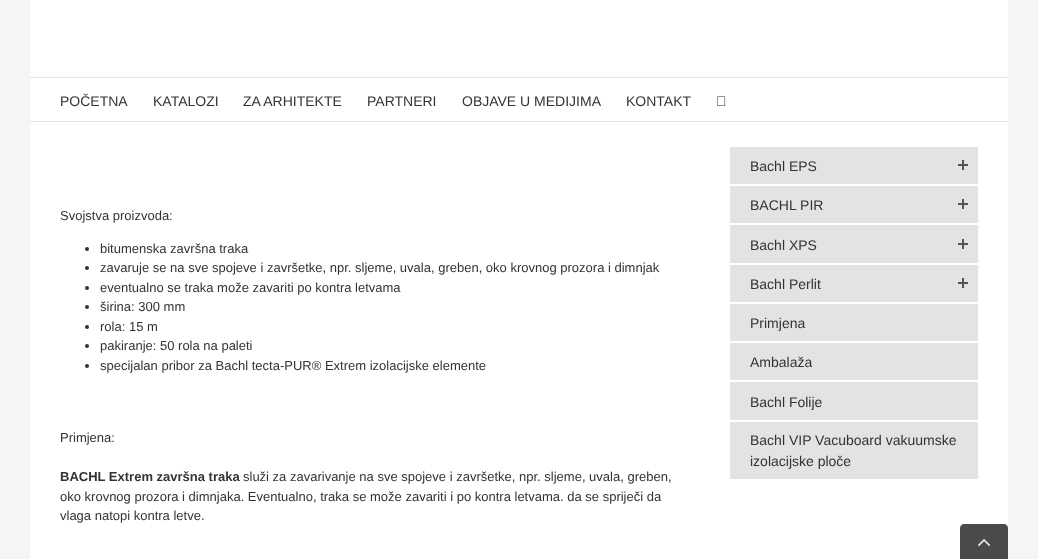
<svg xmlns="http://www.w3.org/2000/svg" width="1038" height="559">
	<rect width="100%" height="100%" fill="#F5F5F5" />
	<rect x="30" y="0" width="978" height="77" fill="#FFFFFF" />
	<rect x="30" y="77" width="978" height="1" fill="#E5E5E5" />
	<rect x="30" y="78" width="978" height="43" fill="#FFFFFF" />
	<rect x="30" y="121" width="978" height="1" fill="#E5E5E5" />
	<g font-family="Liberation Sans" font-size="14" fill="#333333">
		<text x="60" y="106">POČETNA</text>
		<text x="153" y="106">KATALOZI</text>
		<text x="243" y="106">ZA ARHITEKTE</text>
		<text x="367" y="106">PARTNERI</text>
		<text x="462" y="106">OBJAVE U MEDIJIMA</text>
		<text x="626" y="106">KONTAKT</text>
	</g>
	<image x="717" y="96" width="9" height="10" href="assets/img1.png" />
	<rect x="30" y="122" width="978" height="437" fill="#FFFFFF" />
	<text x="60" y="220" font-family="Liberation Sans" font-size="13" fill="#333333">Svojstva proizvoda:</text>
	<circle cx="87" cy="249" r="2" fill="#333333" />
	<text x="100" y="253" font-family="Liberation Sans" font-size="13" fill="#333333">bitumenska završna traka</text>
	<circle cx="87" cy="268" r="2" fill="#333333" />
	<text x="100" y="272" font-family="Liberation Sans" font-size="13" fill="#333333">zavaruje se na sve spojeve i završetke, npr. sljeme, uvala, greben, oko krovnog prozora i dimnjak</text>
	<circle cx="87" cy="288" r="2" fill="#333333" />
	<text x="100" y="292" font-family="Liberation Sans" font-size="13" fill="#333333">eventualno se traka može zavariti po kontra letvama</text>
	<circle cx="87" cy="307" r="2" fill="#333333" />
	<text x="100" y="311" font-family="Liberation Sans" font-size="13" fill="#333333">širina: 300 mm</text>
	<circle cx="87" cy="327" r="2" fill="#333333" />
	<text x="100" y="331" font-family="Liberation Sans" font-size="13" fill="#333333">rola: 15 m</text>
	<circle cx="87" cy="346" r="2" fill="#333333" />
	<text x="100" y="350" font-family="Liberation Sans" font-size="13" fill="#333333">pakiranje: 50 rola na paleti</text>
	<circle cx="87" cy="366" r="2" fill="#333333" />
	<g font-family="Liberation Sans" font-size="13" fill="#333333">
		<text x="100" y="370">specijalan pribor za Bachl tecta-PUR® Extrem izolacijske elemente</text>
		<text x="60" y="442">Primjena:</text>
	</g>
	<text x="60" y="481" font-family="Liberation Sans" font-size="13" font-weight="700" fill="#333333">BACHL Extrem završna traka</text>
	<g font-family="Liberation Sans" font-size="13" fill="#333333">
		<text x="243" y="481">služi za zavarivanje na sve spojeve i završetke, npr. sljeme, uvala, greben,</text>
		<text x="60" y="501">oko krovnog prozora i dimnjaka. Eventualno, traka se može zavariti i po kontra letvama. da se spriječi da</text>
		<text x="60" y="520">vlaga natopi kontra letve.</text>
	</g>
	<rect x="730" y="147" width="248" height="37" fill="#E3E3E4" />
	<image x="958" y="160" width="10" height="10" href="assets/img2.png" />
	<text x="750" y="171" font-family="Arimo" font-size="14" fill="#333333">Bachl EPS</text>
	<rect x="730" y="186" width="248" height="37" fill="#E3E3E4" />
	<image x="958" y="199" width="10" height="10" href="assets/img2.png" />
	<text x="750" y="210" font-family="Arimo" font-size="14" fill="#333333">BACHL PIR</text>
	<rect x="730" y="225" width="248" height="38" fill="#E3E3E4" />
	<image x="958" y="239" width="10" height="10" href="assets/img2.png" />
	<text x="750" y="250" font-family="Arimo" font-size="14" fill="#333333">Bachl XPS</text>
	<rect x="730" y="265" width="248" height="37" fill="#E3E3E4" />
	<image x="958" y="278" width="10" height="10" href="assets/img2.png" />
	<text x="750" y="289" font-family="Arimo" font-size="14" fill="#333333">Bachl Perlit</text>
	<rect x="730" y="304" width="248" height="37" fill="#E3E3E4" />
	<text x="750" y="328" font-family="Arimo" font-size="14" fill="#333333">Primjena</text>
	<rect x="730" y="343" width="248" height="37" fill="#E3E3E4" />
	<text x="750" y="367" font-family="Arimo" font-size="14" fill="#333333">Ambalaža</text>
	<rect x="730" y="382" width="248" height="38" fill="#E3E3E4" />
	<text x="750" y="407" font-family="Arimo" font-size="14" fill="#333333">Bachl Folije</text>
	<rect x="730" y="422" width="248" height="57" fill="#E3E3E4" />
	<g font-family="Arimo" font-size="14" fill="#333333">
		<text x="750" y="445">Bachl VIP Vacuboard vakuumske</text>
		<text x="750" y="466">izolacijske ploče</text>
	</g>
	<path d="M964 524H1004C1006 524 1008 526 1008 528V559H960V528C960 526 962 524 964 524Z" fill="#4A4A4A" />
	<image x="978" y="539" width="13" height="8" href="assets/img3.png" />
</svg>
